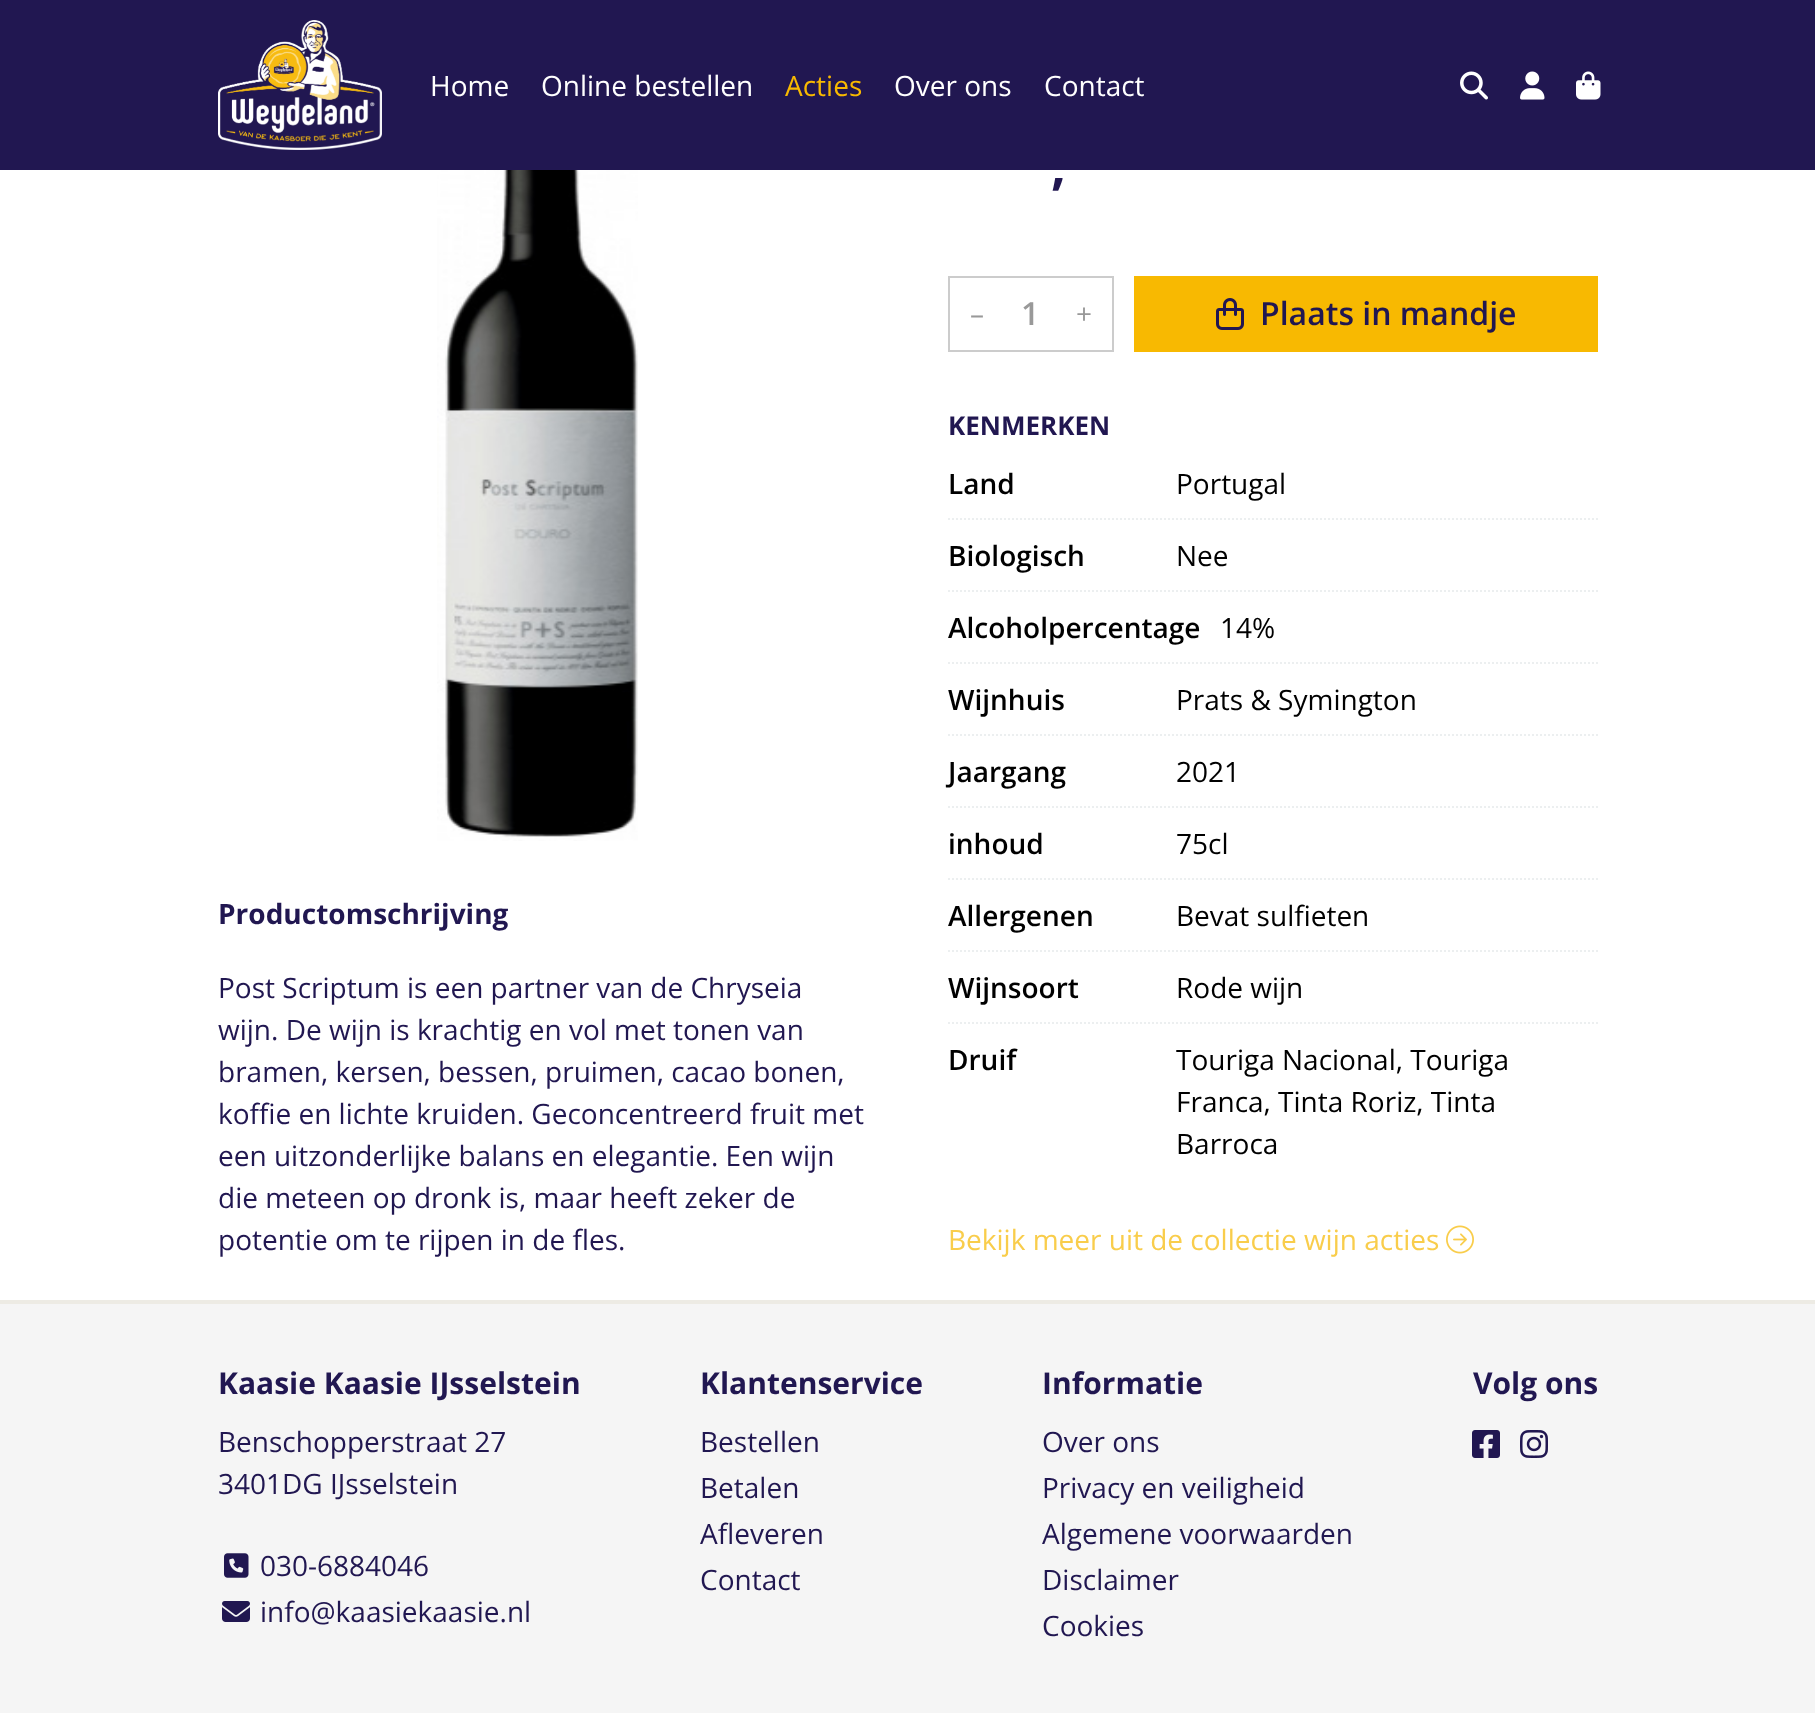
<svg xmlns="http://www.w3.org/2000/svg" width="1815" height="1713">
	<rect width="100%" height="100%" fill="#FFFFFF" />
	<rect x="0" y="0" width="1815" height="170" fill="#211751" />
	<image x="218" y="20" width="164" height="130" href="assets/img1.png" />
	<g font-family="Open Sans" font-size="28" fill="#FFFFFF">
		<text x="430" y="96">Home</text>
		<text x="541" y="96">Online bestellen</text>
	</g>
	<text x="785" y="96" font-family="Open Sans" font-size="28" fill="#F8B901">Acties</text>
	<g font-family="Open Sans" font-size="28" fill="#FFFFFF">
		<text x="894" y="96">Over ons</text>
		<text x="1044" y="96">Contact</text>
	</g>
	<image x="1460" y="71" width="28" height="29" href="assets/img2.png" />
	<image x="1520" y="71" width="25" height="29" href="assets/img3.png" />
	<image x="1576" y="71" width="25" height="29" href="assets/img4.png" />
	<image x="437" y="170" width="201" height="671" href="assets/img5.png" />
	<text x="218" y="924" font-family="Open Sans" font-size="28" font-weight="700" fill="#211751">Productomschrijving</text>
	<g font-family="Open Sans" font-size="28" fill="#211751">
		<text x="218" y="998">Post Scriptum is een partner van de Chryseia</text>
		<text x="218" y="1040">wijn. De wijn is krachtig en vol met tonen van</text>
		<text x="218" y="1082">bramen, kersen, bessen, pruimen, cacao bonen,</text>
		<text x="218" y="1124">koffie en lichte kruiden. Geconcentreerd fruit met</text>
		<text x="218" y="1166">een uitzonderlijke balans en elegantie. Een wijn</text>
		<text x="218" y="1208">die meteen op dronk is, maar heeft zeker de</text>
		<text x="218" y="1250">potentie om te rijpen in de fles.</text>
	</g>
	<text x="1051" y="184" font-family="Open Sans" font-size="52" font-weight="700" fill="#211751">,</text>
	<rect x="949" y="277" width="164" height="74" fill="none" stroke="#CCCCCC" stroke-width="2" />
	<text x="970" y="324" font-family="Open Sans" font-size="28" fill="#999999">–</text>
	<text x="1021" y="325" font-family="Open Sans" font-size="32" font-weight="600" fill="#999999">1</text>
	<text x="1076" y="324" font-family="Open Sans" font-size="28" fill="#999999">+</text>
	<rect x="1134" y="276" width="464" height="76" fill="#F8B901" />
	<image x="1216" y="298" width="28" height="32" href="assets/img6.png" />
	<text x="1260" y="325" font-family="Open Sans" font-size="32" font-weight="600" fill="#211751">Plaats in mandje</text>
	<text x="948" y="435" font-family="Open Sans" font-size="26" font-weight="700" fill="#211751">KENMERKEN</text>
	<path d="M948 519H1598" fill="none" stroke="#ECEFF0" stroke-width="2" stroke-dasharray="2 2" />
	<text x="948" y="494" font-family="Open Sans" font-size="28" font-weight="600" fill="#000000">Land</text>
	<text x="1176" y="494" font-family="Open Sans" font-size="28" fill="#000000">Portugal</text>
	<path d="M948 591H1598" fill="none" stroke="#ECEFF0" stroke-width="2" stroke-dasharray="2 2" />
	<text x="948" y="566" font-family="Open Sans" font-size="28" font-weight="600" fill="#000000">Biologisch</text>
	<text x="1176" y="566" font-family="Open Sans" font-size="28" fill="#000000">Nee</text>
	<path d="M948 663H1598" fill="none" stroke="#ECEFF0" stroke-width="2" stroke-dasharray="2 2" />
	<text x="948" y="638" font-family="Open Sans" font-size="28" font-weight="600" fill="#000000">Alcoholpercentage</text>
	<text x="1220" y="638" font-family="Open Sans" font-size="28" fill="#000000">14%</text>
	<path d="M948 735H1598" fill="none" stroke="#ECEFF0" stroke-width="2" stroke-dasharray="2 2" />
	<text x="948" y="710" font-family="Open Sans" font-size="28" font-weight="600" fill="#000000">Wijnhuis</text>
	<text x="1176" y="710" font-family="Open Sans" font-size="28" fill="#000000">Prats &amp; Symington</text>
	<path d="M948 807H1598" fill="none" stroke="#ECEFF0" stroke-width="2" stroke-dasharray="2 2" />
	<text x="948" y="782" font-family="Open Sans" font-size="28" font-weight="600" fill="#000000">Jaargang</text>
	<text x="1176" y="782" font-family="Open Sans" font-size="28" fill="#000000">2021</text>
	<path d="M948 879H1598" fill="none" stroke="#ECEFF0" stroke-width="2" stroke-dasharray="2 2" />
	<text x="948" y="854" font-family="Open Sans" font-size="28" font-weight="600" fill="#000000">inhoud</text>
	<text x="1176" y="854" font-family="Open Sans" font-size="28" fill="#000000">75cl</text>
	<path d="M948 951H1598" fill="none" stroke="#ECEFF0" stroke-width="2" stroke-dasharray="2 2" />
	<text x="948" y="926" font-family="Open Sans" font-size="28" font-weight="600" fill="#000000">Allergenen</text>
	<text x="1176" y="926" font-family="Open Sans" font-size="28" fill="#000000">Bevat sulfieten</text>
	<path d="M948 1023H1598" fill="none" stroke="#ECEFF0" stroke-width="2" stroke-dasharray="2 2" />
	<text x="948" y="998" font-family="Open Sans" font-size="28" font-weight="600" fill="#000000">Wijnsoort</text>
	<text x="1176" y="998" font-family="Open Sans" font-size="28" fill="#000000">Rode wijn</text>
	<text x="948" y="1070" font-family="Open Sans" font-size="28" font-weight="600" fill="#000000">Druif</text>
	<g font-family="Open Sans" font-size="28" fill="#000000">
		<text x="1176" y="1070">Touriga Nacional, Touriga</text>
		<text x="1176" y="1112">Franca, Tinta Roriz, Tinta</text>
		<text x="1176" y="1154">Barroca</text>
	</g>
	<text x="948" y="1250" font-family="Open Sans" font-size="28" fill="#F9CD4B">Bekijk meer uit de collectie wijn acties</text>
	<image x="1446" y="1225" width="28" height="29" href="assets/img7.png" />
	<rect x="0" y="1304" width="1815" height="409" fill="#F5F5F5" />
	<rect x="0" y="1300" width="1815" height="4" fill="#EDEBE4" />
	<text x="218" y="1394" font-family="Open Sans" font-size="30" font-weight="700" fill="#211751">Kaasie Kaasie IJsselstein</text>
	<g font-family="Open Sans" font-size="28" fill="#211751">
		<text x="218" y="1452">Benschopperstraat 27</text>
		<text x="218" y="1494">3401DG IJsselstein</text>
	</g>
	<image x="224" y="1553" width="25" height="25" href="assets/img8.png" />
	<text x="260" y="1576" font-family="Open Sans" font-size="28" fill="#211751">030-6884046</text>
	<image x="222" y="1601" width="28" height="21" href="assets/img9.png" />
	<text x="260" y="1622" font-family="Open Sans" font-size="28" fill="#211751">info@kaasiekaasie.nl</text>
	<text x="700" y="1394" font-family="Open Sans" font-size="30" font-weight="700" fill="#211751">Klantenservice</text>
	<g font-family="Open Sans" font-size="28" fill="#211751">
		<text x="700" y="1452">Bestellen</text>
		<text x="700" y="1498">Betalen</text>
		<text x="700" y="1544">Afleveren</text>
		<text x="700" y="1590">Contact</text>
	</g>
	<text x="1042" y="1394" font-family="Open Sans" font-size="30" font-weight="700" fill="#211751">Informatie</text>
	<g font-family="Open Sans" font-size="28" fill="#211751">
		<text x="1042" y="1452">Over ons</text>
		<text x="1042" y="1498">Privacy en veiligheid</text>
		<text x="1042" y="1544">Algemene voorwaarden</text>
		<text x="1042" y="1590">Disclaimer</text>
		<text x="1042" y="1636">Cookies</text>
	</g>
	<text x="1473" y="1394" font-family="Open Sans" font-size="30" font-weight="700" fill="#211751">Volg ons</text>
	<image x="1472" y="1430" width="28" height="28" href="assets/img10.png" />
	<image x="1520" y="1430" width="28" height="28" href="assets/img11.png" />
</svg>
